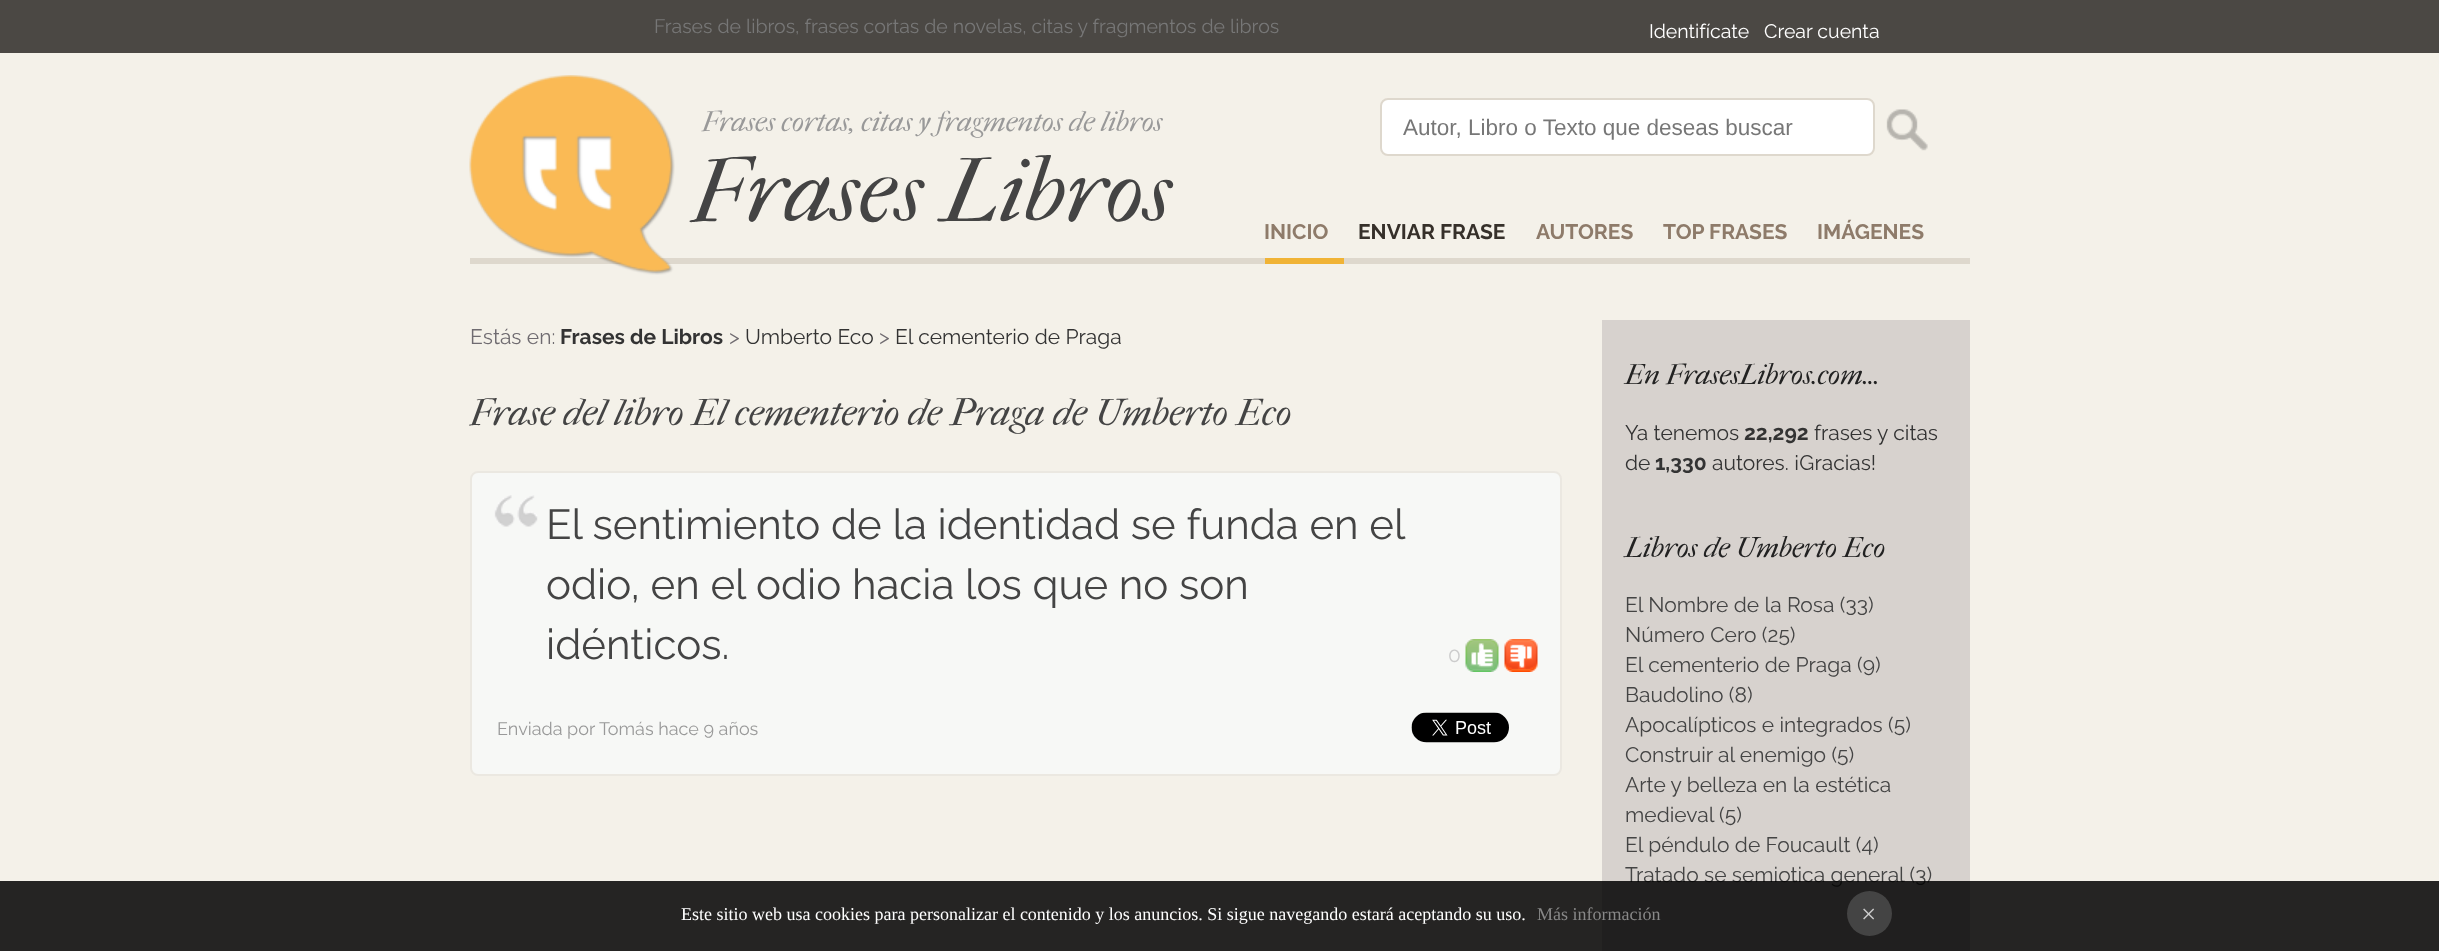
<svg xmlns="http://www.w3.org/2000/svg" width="2439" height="951">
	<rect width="100%" height="100%" fill="#F4F1E9" />
	<rect x="0" y="0" width="2439" height="53" fill="#4B4844" />
	<text x="654" y="33" font-family="Raleway" font-size="19.5" fill="#777777">Frases de libros, frases cortas de novelas, citas y fragmentos de libros</text>
	<g font-family="Raleway" font-size="19.5" fill="#FFFFFF">
		<text x="1649" y="38">Identifícate</text>
		<text x="1764" y="38">Crear cuenta</text>
	</g>
	<rect x="470" y="258" width="1500" height="6" fill="#DED8CD" />
	<image x="469" y="75" width="206" height="200" href="assets/img1.png" />
	<text x="702" y="131" font-family="IM FELL French Canon" font-size="28.5" font-style="italic" fill="#999999">Frases cortas, citas y fragmentos de libros</text>
	<text x="692" y="221" font-family="IM FELL French Canon" font-size="90" font-style="italic" fill="#444444">Frases Libros</text>
	<rect x="1381" y="99" width="493" height="56" rx="7" fill="#FFFFFF" stroke="#DED8CD" stroke-width="2" />
	<text x="1403" y="135" font-family="Liberation Sans" font-size="22.5" fill="#777777">Autor, Libro o Texto que deseas buscar</text>
	<image x="1886" y="109" width="42" height="42" href="assets/img2.png" />
	<text x="1264" y="239" font-family="Raleway" font-size="21" font-weight="700" fill="#8E7B6A">INICIO</text>
	<rect x="1265" y="258" width="79" height="6" fill="#F0B336" />
	<text x="1358" y="239" font-family="Raleway" font-size="21" font-weight="700" fill="#36302A">ENVIAR FRASE</text>
	<g font-family="Raleway" font-size="21" font-weight="700" fill="#8E7B6A">
		<text x="1536" y="239">AUTORES</text>
		<text x="1663" y="239">TOP FRASES</text>
		<text x="1817" y="239">IMÁGENES</text>
	</g>
	<text x="470" y="344" font-family="Raleway" font-size="21" fill="#6F6B70">Estás en:</text>
	<text x="560" y="344" font-family="Raleway" font-size="21" font-weight="700" fill="#333333">Frases de Libros</text>
	<text x="729" y="344" font-family="Raleway" font-size="21" fill="#6F6B70">&gt;</text>
	<text x="745" y="344" font-family="Raleway" font-size="21" fill="#333333">Umberto Eco</text>
	<text x="879" y="344" font-family="Raleway" font-size="21" fill="#6F6B70">&gt;</text>
	<text x="895" y="344" font-family="Raleway" font-size="21" fill="#333333">El cementerio de Praga</text>
	<text x="470" y="425" font-family="IM FELL French Canon" font-size="37.5" font-style="italic" fill="#444444">Frase del libro El cementerio de Praga de Umberto Eco</text>
	<rect x="471" y="472" width="1090" height="303" rx="7" fill="#F7F8F6" stroke="#EBE8E1" stroke-width="2" />
	<image x="494" y="495" width="44" height="32" href="assets/img3.png" />
	<g font-family="Raleway" font-size="42" fill="#444444">
		<text x="546" y="539">El sentimiento de la identidad se funda en el</text>
		<text x="546" y="599">odio, en el odio hacia los que no son</text>
		<text x="546" y="659">idénticos.</text>
	</g>
	<text x="1448" y="662" font-family="Raleway" font-size="21" fill="#CCCCCC">0</text>
	<image x="1465" y="639" width="34" height="33" href="assets/img4.png" />
	<image x="1504" y="639" width="34" height="33" href="assets/img5.png" />
	<text x="497" y="735" font-family="Raleway" font-size="18" fill="#999999">Enviada por Tomás hace 9 años</text>
	<image x="1411" y="712" width="98" height="31" href="assets/img6.png" />
	<rect x="1602" y="320" width="368" height="631" fill="#D7D2CE" />
	<text x="1625" y="384" font-family="IM FELL French Canon" font-size="28.5" font-style="italic" fill="#222222">En FrasesLibros.com...</text>
	<text x="1625" y="440" font-family="Raleway" font-size="21" fill="#333333">Ya tenemos</text>
	<text x="1744" y="440" font-family="Raleway" font-size="21" font-weight="700" fill="#333333">22,292</text>
	<g font-family="Raleway" font-size="21" fill="#333333">
		<text x="1814" y="440">frases y citas</text>
		<text x="1625" y="470">de</text>
	</g>
	<text x="1655" y="470" font-family="Raleway" font-size="21" font-weight="700" fill="#333333">1,330</text>
	<text x="1712" y="470" font-family="Raleway" font-size="21" fill="#333333">autores. ¡Gracias!</text>
	<text x="1625" y="557" font-family="IM FELL French Canon" font-size="28.5" font-style="italic" fill="#222222">Libros de Umberto Eco</text>
	<g font-family="Raleway" font-size="21" fill="#444444">
		<text x="1625" y="612">El Nombre de la Rosa (33)</text>
		<text x="1625" y="642">Número Cero (25)</text>
		<text x="1625" y="672">El cementerio de Praga (9)</text>
		<text x="1625" y="702">Baudolino (8)</text>
		<text x="1625" y="732">Apocalípticos e integrados (5)</text>
		<text x="1625" y="762">Construir al enemigo (5)</text>
		<text x="1625" y="792">Arte y belleza en la estética</text>
		<text x="1625" y="822">medieval (5)</text>
		<text x="1625" y="852">El péndulo de Foucault (4)</text>
		<text x="1625" y="882">Tratado se semiotica general (3)</text>
	</g>
	<rect x="0" y="881" width="2439" height="70" fill="#000000" fill-opacity="0.85" />
	<text x="681" y="920" font-family="Liberation Serif" font-size="18" fill="#FFFFFF">Este sitio web usa cookies para personalizar el contenido y los anuncios. Si sigue navegando estará aceptando su uso.</text>
	<text x="1537" y="920" font-family="Liberation Serif" font-size="18" fill="#888888">Más información</text>
	<circle cx="1869.5" cy="913.5" r="22.5" fill="#444444" />
	<text x="1861" y="923" font-family="Liberation Serif" font-size="27" fill="#CCCCCC">×</text>
</svg>
